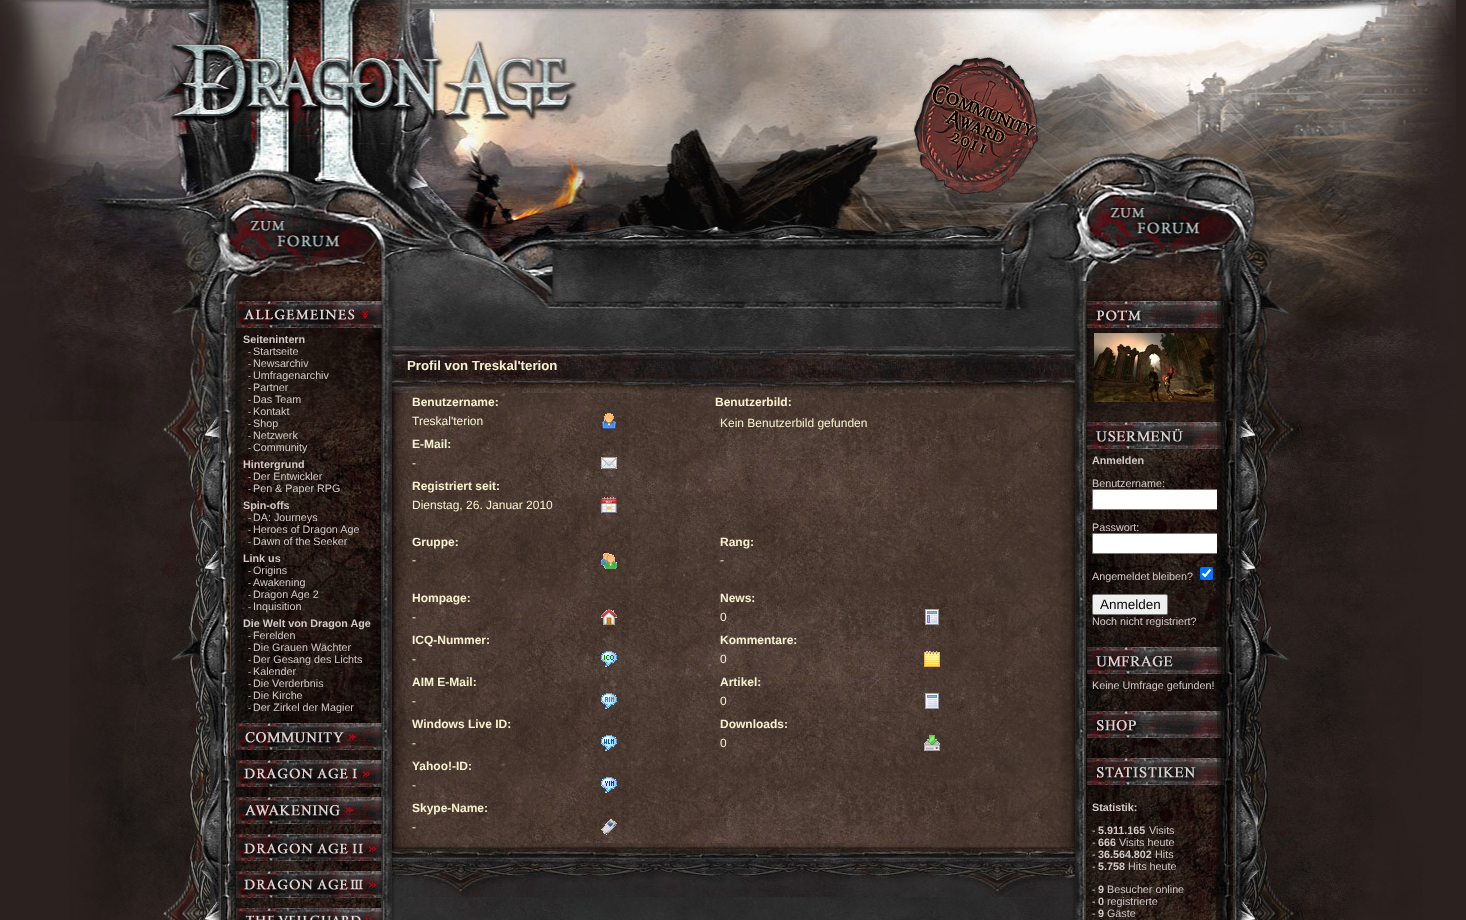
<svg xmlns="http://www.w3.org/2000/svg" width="1466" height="920">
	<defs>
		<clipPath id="clip1"><path d="M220 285H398V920H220ZM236 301H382V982H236Z" clip-rule="evenodd" /></clipPath>
		<clipPath id="clip2"><path d="M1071 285H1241V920H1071ZM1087 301H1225V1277H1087Z" clip-rule="evenodd" /></clipPath>
		<clipPath id="clip3"><rect x="1092" y="454" width="125" height="173" /></clipPath>
		<clipPath id="clip4"><rect x="1092" y="679" width="125" height="12" /></clipPath>
	</defs>
	<rect width="100%" height="100%" fill="#2B2220" />
	<image x="69" y="421" width="1354" height="499" href="assets/img1.png" />
	<image x="0" y="0" width="1456" height="421" href="assets/img2.png" />
	<image x="912" y="56" width="127" height="141" href="assets/img3.png" />
	<g clip-path="url(#clip1)">
		<rect x="236" y="301" width="146" height="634" fill="#000000" filter="blur(5px)" />
	</g>
	<rect x="236" y="328" width="146" height="580" fill="#000000" fill-opacity="0.5" />
	<image x="236" y="301" width="146" height="27" href="assets/img4.png" />
	<image x="244" y="309" width="124" height="11" href="assets/img5.png" />
	<text x="243" y="343" font-family="Liberation Sans" font-size="10.75" font-weight="700" fill="#D2C9C6">Seitenintern</text>
	<text x="248" y="355" font-family="Liberation Sans" font-size="9" fill="#D2C9C6">-</text>
	<text x="253" y="355" font-family="Liberation Sans" font-size="10.75" fill="#D2C9C6">Startseite</text>
	<text x="248" y="367" font-family="Liberation Sans" font-size="9" fill="#D2C9C6">-</text>
	<text x="253" y="367" font-family="Liberation Sans" font-size="10.75" fill="#D2C9C6">Newsarchiv</text>
	<text x="248" y="379" font-family="Liberation Sans" font-size="9" fill="#D2C9C6">-</text>
	<text x="253" y="379" font-family="Liberation Sans" font-size="10.75" fill="#D2C9C6">Umfragenarchiv</text>
	<text x="248" y="391" font-family="Liberation Sans" font-size="9" fill="#D2C9C6">-</text>
	<text x="253" y="391" font-family="Liberation Sans" font-size="10.75" fill="#D2C9C6">Partner</text>
	<text x="248" y="403" font-family="Liberation Sans" font-size="9" fill="#D2C9C6">-</text>
	<text x="253" y="403" font-family="Liberation Sans" font-size="10.75" fill="#D2C9C6">Das Team</text>
	<text x="248" y="415" font-family="Liberation Sans" font-size="9" fill="#D2C9C6">-</text>
	<text x="253" y="415" font-family="Liberation Sans" font-size="10.75" fill="#D2C9C6">Kontakt</text>
	<text x="248" y="427" font-family="Liberation Sans" font-size="9" fill="#D2C9C6">-</text>
	<text x="253" y="427" font-family="Liberation Sans" font-size="10.75" fill="#D2C9C6">Shop</text>
	<text x="248" y="439" font-family="Liberation Sans" font-size="9" fill="#D2C9C6">-</text>
	<text x="253" y="439" font-family="Liberation Sans" font-size="10.75" fill="#D2C9C6">Netzwerk</text>
	<text x="248" y="451" font-family="Liberation Sans" font-size="9" fill="#D2C9C6">-</text>
	<text x="253" y="451" font-family="Liberation Sans" font-size="10.75" fill="#D2C9C6">Community</text>
	<text x="243" y="468" font-family="Liberation Sans" font-size="10.75" font-weight="700" fill="#D2C9C6">Hintergrund</text>
	<text x="248" y="480" font-family="Liberation Sans" font-size="9" fill="#D2C9C6">-</text>
	<text x="253" y="480" font-family="Liberation Sans" font-size="10.75" fill="#D2C9C6">Der Entwickler</text>
	<text x="248" y="492" font-family="Liberation Sans" font-size="9" fill="#D2C9C6">-</text>
	<text x="253" y="492" font-family="Liberation Sans" font-size="10.75" fill="#D2C9C6">Pen &amp; Paper RPG</text>
	<text x="243" y="509" font-family="Liberation Sans" font-size="10.75" font-weight="700" fill="#D2C9C6">Spin-offs</text>
	<text x="248" y="521" font-family="Liberation Sans" font-size="9" fill="#D2C9C6">-</text>
	<text x="253" y="521" font-family="Liberation Sans" font-size="10.75" fill="#D2C9C6">DA: Journeys</text>
	<text x="248" y="533" font-family="Liberation Sans" font-size="9" fill="#D2C9C6">-</text>
	<text x="253" y="533" font-family="Liberation Sans" font-size="10.75" fill="#D2C9C6">Heroes of Dragon Age</text>
	<text x="248" y="545" font-family="Liberation Sans" font-size="9" fill="#D2C9C6">-</text>
	<text x="253" y="545" font-family="Liberation Sans" font-size="10.75" fill="#D2C9C6">Dawn of the Seeker</text>
	<text x="243" y="562" font-family="Liberation Sans" font-size="10.75" font-weight="700" fill="#D2C9C6">Link us</text>
	<text x="248" y="574" font-family="Liberation Sans" font-size="9" fill="#D2C9C6">-</text>
	<text x="253" y="574" font-family="Liberation Sans" font-size="10.75" fill="#D2C9C6">Origins</text>
	<text x="248" y="586" font-family="Liberation Sans" font-size="9" fill="#D2C9C6">-</text>
	<text x="253" y="586" font-family="Liberation Sans" font-size="10.75" fill="#D2C9C6">Awakening</text>
	<text x="248" y="598" font-family="Liberation Sans" font-size="9" fill="#D2C9C6">-</text>
	<text x="253" y="598" font-family="Liberation Sans" font-size="10.75" fill="#D2C9C6">Dragon Age 2</text>
	<text x="248" y="610" font-family="Liberation Sans" font-size="9" fill="#D2C9C6">-</text>
	<text x="253" y="610" font-family="Liberation Sans" font-size="10.75" fill="#D2C9C6">Inquisition</text>
	<text x="243" y="627" font-family="Liberation Sans" font-size="10.75" font-weight="700" fill="#D2C9C6">Die Welt von Dragon Age</text>
	<text x="248" y="639" font-family="Liberation Sans" font-size="9" fill="#D2C9C6">-</text>
	<text x="253" y="639" font-family="Liberation Sans" font-size="10.75" fill="#D2C9C6">Ferelden</text>
	<text x="248" y="651" font-family="Liberation Sans" font-size="9" fill="#D2C9C6">-</text>
	<text x="253" y="651" font-family="Liberation Sans" font-size="10.75" fill="#D2C9C6">Die Grauen Wächter</text>
	<text x="248" y="663" font-family="Liberation Sans" font-size="9" fill="#D2C9C6">-</text>
	<text x="253" y="663" font-family="Liberation Sans" font-size="10.75" fill="#D2C9C6">Der Gesang des Lichts</text>
	<text x="248" y="675" font-family="Liberation Sans" font-size="9" fill="#D2C9C6">-</text>
	<text x="253" y="675" font-family="Liberation Sans" font-size="10.75" fill="#D2C9C6">Kalender</text>
	<text x="248" y="687" font-family="Liberation Sans" font-size="9" fill="#D2C9C6">-</text>
	<text x="253" y="687" font-family="Liberation Sans" font-size="10.75" fill="#D2C9C6">Die Verderbnis</text>
	<text x="248" y="699" font-family="Liberation Sans" font-size="9" fill="#D2C9C6">-</text>
	<text x="253" y="699" font-family="Liberation Sans" font-size="10.75" fill="#D2C9C6">Die Kirche</text>
	<text x="248" y="711" font-family="Liberation Sans" font-size="9" fill="#D2C9C6">-</text>
	<text x="253" y="711" font-family="Liberation Sans" font-size="10.75" fill="#D2C9C6">Der Zirkel der Magier</text>
	<image x="236" y="723" width="146" height="27" href="assets/img4.png" />
	<image x="245" y="732" width="111" height="11" href="assets/img6.png" />
	<image x="236" y="760" width="146" height="27" href="assets/img4.png" />
	<image x="244" y="768" width="126" height="11" href="assets/img7.png" />
	<image x="236" y="797" width="146" height="27" href="assets/img4.png" />
	<image x="245" y="805" width="108" height="11" href="assets/img8.png" />
	<image x="236" y="834" width="146" height="27" href="assets/img4.png" />
	<image x="244" y="843" width="132" height="11" href="assets/img9.png" />
	<image x="236" y="871" width="146" height="27" href="assets/img4.png" />
	<image x="244" y="879" width="132" height="11" href="assets/img10.png" />
	<image x="236" y="908" width="146" height="12" href="assets/img11.png" />
	<image x="245" y="914" width="127" height="6" href="assets/img12.png" />
	<g clip-path="url(#clip2)">
		<rect x="1087" y="301" width="138" height="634" fill="#000000" filter="blur(5px)" />
	</g>
	<image x="392" y="393" width="683" height="450" href="assets/img13.png" />
	<image x="392" y="346" width="683" height="47" href="assets/img14.png" />
	<text x="407" y="370" font-family="Liberation Sans" font-size="13.25" font-weight="700" fill="#F6F2CF">Profil von Treskal'terion</text>
	<g font-family="Liberation Sans" font-size="12" font-weight="700" fill="#F6F2CF">
		<text x="412" y="406">Benutzername:</text>
		<text x="715" y="406">Benutzerbild:</text>
	</g>
	<text x="412" y="425" font-family="Liberation Sans" font-size="12" fill="#F6F2CF">Treskal'terion</text>
	<image x="602" y="413" width="14" height="16" href="assets/img15.png" />
	<text x="720" y="427" font-family="Liberation Sans" font-size="12" fill="#F6F2CF">Kein Benutzerbild gefunden</text>
	<text x="412" y="448" font-family="Liberation Sans" font-size="12" font-weight="700" fill="#F6F2CF">E-Mail:</text>
	<text x="412" y="467" font-family="Liberation Sans" font-size="12" fill="#F6F2CF">-</text>
	<image x="601" y="457" width="16" height="12" href="assets/img16.png" />
	<text x="412" y="490" font-family="Liberation Sans" font-size="12" font-weight="700" fill="#F6F2CF">Registriert seit:</text>
	<text x="412" y="509" font-family="Liberation Sans" font-size="12" fill="#F6F2CF">Dienstag, 26. Januar 2010</text>
	<image x="601" y="497" width="16" height="16" href="assets/img17.png" />
	<g font-family="Liberation Sans" font-size="12" font-weight="700" fill="#F6F2CF">
		<text x="412" y="546">Gruppe:</text>
		<text x="720" y="546">Rang:</text>
	</g>
	<text x="412" y="564" font-family="Liberation Sans" font-size="12" fill="#F6F2CF">-</text>
	<image x="601" y="553" width="16" height="16" href="assets/img18.png" />
	<text x="720" y="564" font-family="Liberation Sans" font-size="12" fill="#F6F2CF">-</text>
	<g font-family="Liberation Sans" font-size="12" font-weight="700" fill="#F6F2CF">
		<text x="412" y="602">Hompage:</text>
		<text x="720" y="602">News:</text>
	</g>
	<text x="412" y="621" font-family="Liberation Sans" font-size="12" fill="#F6F2CF">-</text>
	<image x="601" y="609" width="16" height="16" href="assets/img19.png" />
	<text x="720" y="621" font-family="Liberation Sans" font-size="12" fill="#F6F2CF">0</text>
	<image x="925" y="609" width="14" height="16" href="assets/img20.png" />
	<g font-family="Liberation Sans" font-size="12" font-weight="700" fill="#F6F2CF">
		<text x="412" y="644">ICQ-Nummer:</text>
		<text x="720" y="644">Kommentare:</text>
	</g>
	<text x="412" y="663" font-family="Liberation Sans" font-size="12" fill="#F6F2CF">-</text>
	<image x="601" y="651" width="16" height="16" href="assets/img21.png" />
	<text x="720" y="663" font-family="Liberation Sans" font-size="12" fill="#F6F2CF">0</text>
	<image x="924" y="651" width="16" height="16" href="assets/img22.png" />
	<g font-family="Liberation Sans" font-size="12" font-weight="700" fill="#F6F2CF">
		<text x="412" y="686">AIM E-Mail:</text>
		<text x="720" y="686">Artikel:</text>
	</g>
	<text x="412" y="705" font-family="Liberation Sans" font-size="12" fill="#F6F2CF">-</text>
	<image x="601" y="693" width="16" height="16" href="assets/img23.png" />
	<text x="720" y="705" font-family="Liberation Sans" font-size="12" fill="#F6F2CF">0</text>
	<image x="925" y="693" width="14" height="16" href="assets/img24.png" />
	<g font-family="Liberation Sans" font-size="12" font-weight="700" fill="#F6F2CF">
		<text x="412" y="728">Windows Live ID:</text>
		<text x="720" y="728">Downloads:</text>
	</g>
	<text x="412" y="747" font-family="Liberation Sans" font-size="12" fill="#F6F2CF">-</text>
	<image x="601" y="735" width="16" height="16" href="assets/img25.png" />
	<text x="720" y="747" font-family="Liberation Sans" font-size="12" fill="#F6F2CF">0</text>
	<image x="924" y="735" width="16" height="16" href="assets/img26.png" />
	<text x="412" y="770" font-family="Liberation Sans" font-size="12" font-weight="700" fill="#F6F2CF">Yahoo!-ID:</text>
	<text x="412" y="789" font-family="Liberation Sans" font-size="12" fill="#F6F2CF">-</text>
	<image x="601" y="777" width="16" height="16" href="assets/img27.png" />
	<text x="412" y="812" font-family="Liberation Sans" font-size="12" font-weight="700" fill="#F6F2CF">Skype-Name:</text>
	<text x="412" y="831" font-family="Liberation Sans" font-size="12" fill="#F6F2CF">-</text>
	<image x="601" y="819" width="16" height="16" href="assets/img28.png" />
	<image x="392" y="843" width="683" height="54" href="assets/img29.png" />
	<rect x="1087" y="328" width="138" height="592" fill="#000000" fill-opacity="0.5" />
	<image x="1087" y="301" width="138" height="27" href="assets/img30.png" />
	<image x="1095" y="308" width="47" height="15" href="assets/img31.png" />
	<image x="1094" y="333" width="120" height="69" href="assets/img32.png" />
	<image x="1087" y="422" width="138" height="27" href="assets/img30.png" />
	<image x="1096" y="428" width="87" height="16" href="assets/img33.png" />
	<text x="1092" y="464" font-family="Liberation Sans" font-size="10.75" font-weight="700" fill="#D2C9C6">Anmelden</text>
	<text x="1092" y="487" font-family="Liberation Sans" font-size="10.75" fill="#D2C9C6">Benutzername:</text>
	<path d="M1094 489H1217V510H1094C1093 510 1092 509 1092 508V491C1092 490 1093 489 1094 489Z" fill="#FFFFFF" />
	<g clip-path="url(#clip3)">
		<rect x="1092.5" y="489.5" width="152" height="20" rx="1.5" fill="none" stroke="#767676" />
	</g>
	<text x="1092" y="531" font-family="Liberation Sans" font-size="10.75" fill="#D2C9C6">Passwort:</text>
	<path d="M1094 533H1217V554H1094C1093 554 1092 553 1092 552V535C1092 534 1093 533 1094 533Z" fill="#FFFFFF" />
	<g clip-path="url(#clip3)">
		<rect x="1092.5" y="533.5" width="152" height="20" rx="1.5" fill="none" stroke="#767676" />
	</g>
	<text x="1092" y="580" font-family="Liberation Sans" font-size="10.75" fill="#D2C9C6">Angemeldet bleiben?</text>
	<rect x="1200" y="567" width="13" height="13" rx="2" fill="#0075FF" />
	<path d="M1202.5 573.5L1205 576L1210.5 569.5" fill="none" stroke="#FFFFFF" stroke-width="2.1" />
	<rect x="1092.5" y="594.5" width="75" height="20" rx="1.5" fill="#EFEFEF" stroke="#767676" />
	<text x="1100" y="609" font-family="Liberation Sans" font-size="13.5" fill="#000000">Anmelden</text>
	<text x="1092" y="625" font-family="Liberation Sans" font-size="10.75" fill="#D2C9C6">Noch nicht registriert?</text>
	<image x="1087" y="647" width="138" height="27" href="assets/img30.png" />
	<image x="1096" y="654" width="77" height="15" href="assets/img34.png" />
	<g clip-path="url(#clip4)">
		<text x="1092" y="689" font-family="Liberation Sans" font-size="10.75" fill="#D2C9C6">Keine Umfrage gefunden!</text>
	</g>
	<image x="1087" y="711" width="138" height="27" href="assets/img30.png" />
	<image x="1095" y="718" width="43" height="15" href="assets/img35.png" />
	<image x="1087" y="758" width="138" height="27" href="assets/img30.png" />
	<image x="1095" y="765" width="101" height="15" href="assets/img36.png" />
	<text x="1092" y="811" font-family="Liberation Sans" font-size="10.75" font-weight="700" fill="#D2C9C6">Statistik:</text>
	<text x="1092" y="834" font-family="Liberation Sans" font-size="10.75" fill="#D2C9C6">-</text>
	<text x="1098" y="834" font-family="Liberation Sans" font-size="10.75" font-weight="700" fill="#D2C9C6">5.911.165</text>
	<g font-family="Liberation Sans" font-size="10.75" fill="#D2C9C6">
		<text x="1149" y="834">Visits</text>
		<text x="1092" y="846">-</text>
	</g>
	<text x="1098" y="846" font-family="Liberation Sans" font-size="10.75" font-weight="700" fill="#D2C9C6">666</text>
	<g font-family="Liberation Sans" font-size="10.75" fill="#D2C9C6">
		<text x="1119" y="846">Visits heute</text>
		<text x="1092" y="858">-</text>
	</g>
	<text x="1098" y="858" font-family="Liberation Sans" font-size="10.75" font-weight="700" fill="#D2C9C6">36.564.802</text>
	<g font-family="Liberation Sans" font-size="10.75" fill="#D2C9C6">
		<text x="1155" y="858">Hits</text>
		<text x="1092" y="870">-</text>
	</g>
	<text x="1098" y="870" font-family="Liberation Sans" font-size="10.75" font-weight="700" fill="#D2C9C6">5.758</text>
	<g font-family="Liberation Sans" font-size="10.75" fill="#D2C9C6">
		<text x="1128" y="870">Hits heute</text>
		<text x="1092" y="893">-</text>
	</g>
	<text x="1098" y="893" font-family="Liberation Sans" font-size="10.75" font-weight="700" fill="#D2C9C6">9</text>
	<g font-family="Liberation Sans" font-size="10.75" fill="#D2C9C6">
		<text x="1107" y="893">Besucher online</text>
		<text x="1092" y="905">-</text>
	</g>
	<text x="1098" y="905" font-family="Liberation Sans" font-size="10.75" font-weight="700" fill="#D2C9C6">0</text>
	<g font-family="Liberation Sans" font-size="10.75" fill="#D2C9C6">
		<text x="1107" y="905">registrierte</text>
		<text x="1092" y="917">-</text>
	</g>
	<text x="1098" y="917" font-family="Liberation Sans" font-size="10.75" font-weight="700" fill="#D2C9C6">9</text>
	<text x="1107" y="917" font-family="Liberation Sans" font-size="10.75" fill="#D2C9C6">Gäste</text>
</svg>
